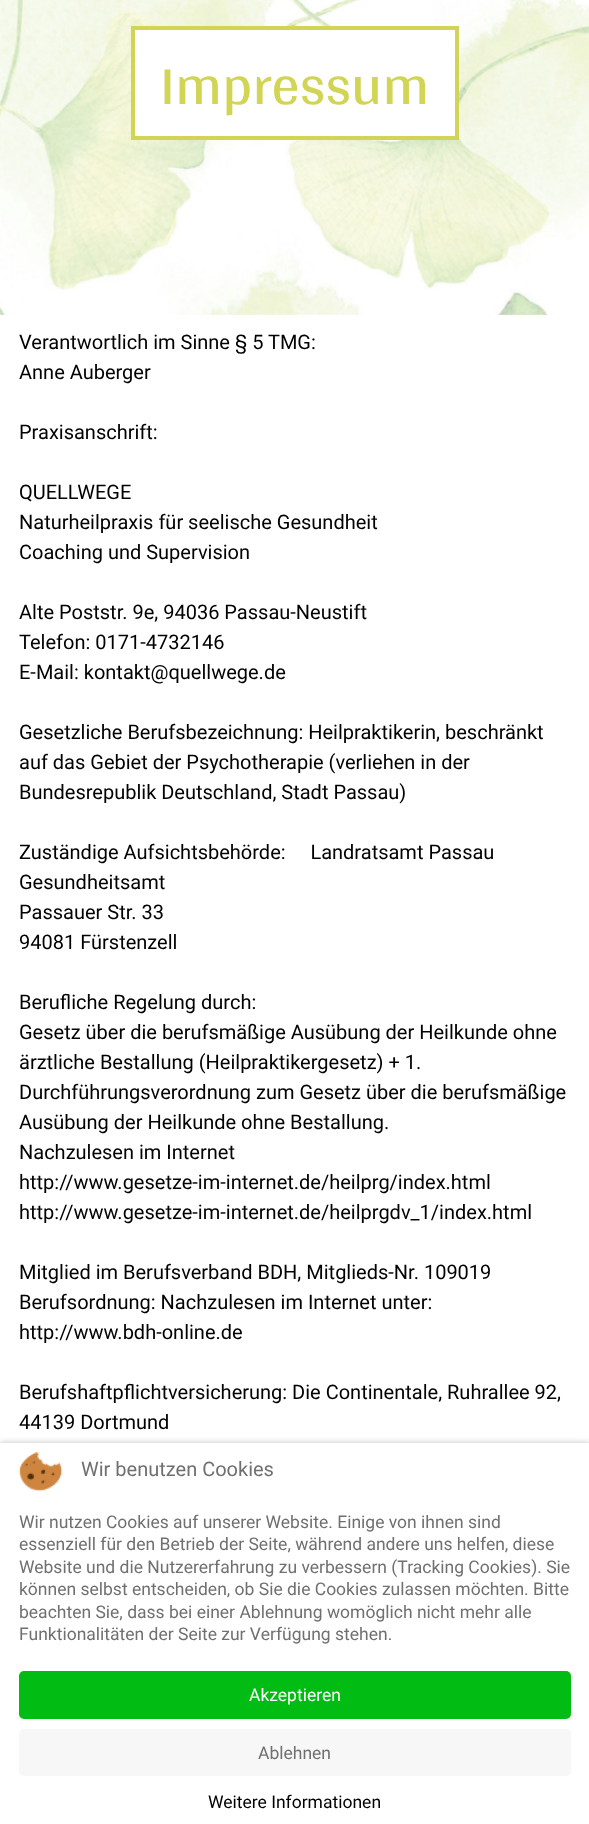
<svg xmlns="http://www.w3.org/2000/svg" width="589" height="1824">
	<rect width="100%" height="100%" fill="#FFFFFF" />
	<image x="0" y="0" width="589" height="315" href="assets/img1.png" />
	<rect x="133" y="28" width="324" height="110" fill="#FFFFFF" stroke="#D1D454" stroke-width="4" />
	<text x="160" y="104" font-family="Arya" font-size="56.25" fill="#D1D454">Impressum</text>
	<g font-family="Roboto" font-size="20" fill="#000000">
		<text x="19" y="349">Verantwortlich im Sinne § 5 TMG:</text>
		<text x="19" y="379">Anne Auberger</text>
		<text x="19" y="439">Praxisanschrift:</text>
		<text x="19" y="499">QUELLWEGE</text>
		<text x="19" y="529">Naturheilpraxis für seelische Gesundheit</text>
		<text x="19" y="559">Coaching und Supervision</text>
		<text x="19" y="619">Alte Poststr. 9e, 94036 Passau-Neustift</text>
		<text x="19" y="649">Telefon: 0171-4732146</text>
		<text x="19" y="679">E-Mail: kontakt@quellwege.de</text>
		<text x="19" y="739">Gesetzliche Berufsbezeichnung: Heilpraktikerin, beschränkt</text>
		<text x="19" y="769">auf das Gebiet der Psychotherapie (verliehen in der</text>
		<text x="19" y="799">Bundesrepublik Deutschland, Stadt Passau)</text>
		<text x="19" y="859" xml:space="preserve">Zuständige Aufsichtsbehörde:     Landratsamt Passau</text>
		<text x="19" y="889">Gesundheitsamt</text>
		<text x="19" y="919">Passauer Str. 33</text>
		<text x="19" y="949">94081 Fürstenzell</text>
		<text x="19" y="1009">Berufliche Regelung durch:</text>
		<text x="19" y="1039">Gesetz über die berufsmäßige Ausübung der Heilkunde ohne</text>
		<text x="19" y="1069">ärztliche Bestallung (Heilpraktikergesetz) + 1.</text>
		<text x="19" y="1099">Durchführungsverordnung zum Gesetz über die berufsmäßige</text>
		<text x="19" y="1129">Ausübung der Heilkunde ohne Bestallung.</text>
		<text x="19" y="1159">Nachzulesen im Internet</text>
		<text x="19" y="1189">http://www.gesetze-im-internet.de/heilprg/index.html</text>
		<text x="19" y="1219">http://www.gesetze-im-internet.de/heilprgdv_1/index.html</text>
		<text x="19" y="1279">Mitglied im Berufsverband BDH, Mitglieds-Nr. 109019</text>
		<text x="19" y="1309">Berufsordnung: Nachzulesen im Internet unter:</text>
		<text x="19" y="1339">http://www.bdh-online.de</text>
		<text x="19" y="1399">Berufshaftpflichtversicherung: Die Continentale, Ruhrallee 92,</text>
		<text x="19" y="1429">44139 Dortmund</text>
	</g>
	<rect x="0" y="1443" width="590" height="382" fill="#000000" fill-opacity="0.25" filter="blur(3px)" />
	<rect x="0" y="1443" width="589" height="381" fill="#FFFFFF" />
	<image x="18" y="1451" width="45" height="41" href="assets/img2.png" />
	<text x="81" y="1476" font-family="Roboto" font-size="20" fill="#707070">Wir benutzen Cookies</text>
	<g font-family="Roboto" font-size="17.5" fill="#707070">
		<text x="19" y="1528">Wir nutzen Cookies auf unserer Website. Einige von ihnen sind</text>
		<text x="19" y="1550">essenziell für den Betrieb der Seite, während andere uns helfen, diese</text>
		<text x="19" y="1573">Website und die Nutzererfahrung zu verbessern (Tracking Cookies). Sie</text>
		<text x="19" y="1595">können selbst entscheiden, ob Sie die Cookies zulassen möchten. Bitte</text>
		<text x="19" y="1618">beachten Sie, dass bei einer Ablehnung womöglich nicht mehr alle</text>
		<text x="19" y="1640">Funktionalitäten der Seite zur Verfügung stehen.</text>
	</g>
	<rect x="19" y="1671" width="552" height="48" rx="5" fill="#00BC13" />
	<text x="249" y="1701" font-family="Roboto" font-size="17.5" fill="#FFFFFF">Akzeptieren</text>
	<rect x="19" y="1729" width="552" height="47" rx="5" fill="#F7F7F7" />
	<text x="258" y="1759" font-family="Roboto" font-size="17.5" fill="#707070">Ablehnen</text>
	<text x="208" y="1808" font-family="Roboto" font-size="17.5" fill="#000000">Weitere Informationen</text>
</svg>
